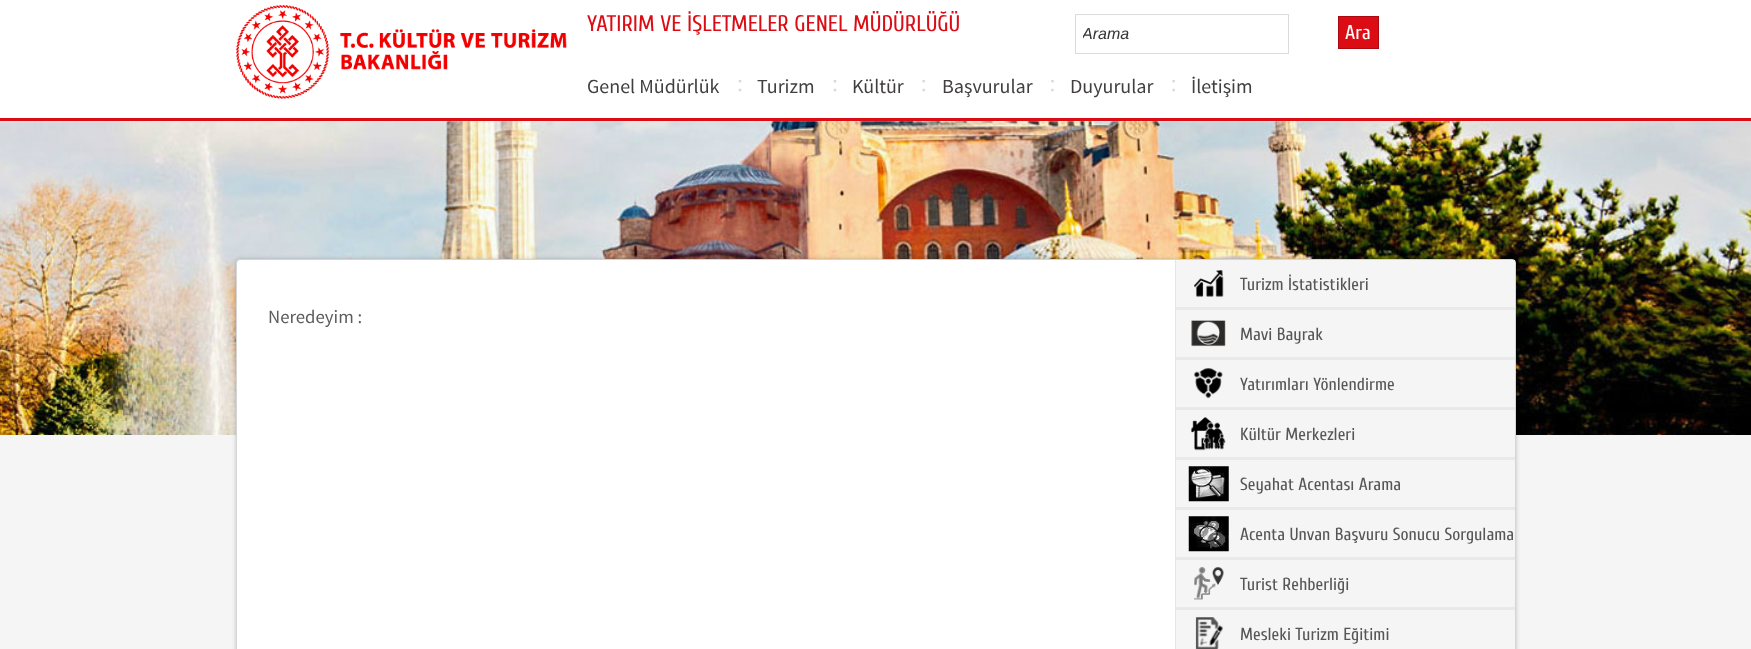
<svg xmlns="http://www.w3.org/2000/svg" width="1751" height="649">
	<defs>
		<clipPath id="clip1"><rect x="1083" y="25" width="200" height="19" /></clipPath>
	</defs>
	<rect width="100%" height="100%" fill="#FFFFFF" />
	<rect x="0" y="118" width="1751" height="3" fill="#DC0C15" />
	<image x="236" y="5" width="331" height="94" href="assets/img1.png" />
	<text x="587" y="31" font-family="Cuprum" font-size="22.5" fill="#DC0C15">YATIRIM VE İŞLETMELER GENEL MÜDÜRLÜĞÜ</text>
	<rect x="1075.5" y="14.5" width="213" height="39" fill="none" stroke="#DBDBDB" />
	<g clip-path="url(#clip1)">
		<text x="1082" y="39" font-family="Liberation Sans" font-size="16" font-style="italic" fill="#333333">Arama</text>
	</g>
	<rect x="1338.5" y="16.5" width="40" height="32" fill="#DC0C15" stroke="#AA0911" />
	<text x="1345" y="39" font-family="Cuprum" font-size="20" fill="#FFFFFF">Ara</text>
	<text x="587" y="93" font-family="Source Sans Pro" font-size="20" fill="#403E3E">Genel Müdürlük</text>
	<image x="738" y="80" width="4" height="12" href="assets/img2.png" />
	<text x="757" y="93" font-family="Source Sans Pro" font-size="20" fill="#403E3E">Turizm</text>
	<image x="833" y="80" width="4" height="12" href="assets/img2.png" />
	<text x="852" y="93" font-family="Source Sans Pro" font-size="20" fill="#403E3E">Kültür</text>
	<image x="922" y="80" width="3" height="12" href="assets/img3.png" />
	<text x="942" y="93" font-family="Source Sans Pro" font-size="20" fill="#403E3E">Başvurular</text>
	<image x="1051" y="80" width="3" height="12" href="assets/img4.png" />
	<text x="1070" y="93" font-family="Source Sans Pro" font-size="20" fill="#403E3E">Duyurular</text>
	<image x="1172" y="80" width="3" height="12" href="assets/img3.png" />
	<text x="1191" y="93" font-family="Source Sans Pro" font-size="20" fill="#403E3E">İletişim</text>
	<rect x="0" y="121" width="1751" height="528" fill="#F5F5F5" />
	<image x="0" y="121" width="1751" height="314" href="assets/img5.png" />
	<rect x="236" y="259" width="1280" height="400" rx="4" fill="#000000" fill-opacity="0.2" filter="blur(2px)" />
	<rect x="236.5" y="259.5" width="1279" height="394" rx="3.5" fill="#FFFFFF" stroke="#D5D5D5" />
	<text x="268" y="323" font-family="Source Sans Pro" font-size="18.75" fill="#5D5D5D">Neredeyim :</text>
	<rect x="1176" y="260" width="339" height="389" fill="#F5F5F5" />
	<rect x="1175" y="260" width="1" height="389" fill="#E5E5E5" />
	<rect x="1176" y="307" width="339" height="3" fill="#E9E9E9" />
	<image x="1194" y="270" width="30" height="27" href="assets/img6.png" />
	<text x="1240" y="290" font-family="Cuprum" font-size="17.5" fill="#565656">Turizm İstatistikleri</text>
	<rect x="1176" y="357" width="339" height="3" fill="#E9E9E9" />
	<image x="1191" y="320" width="35" height="27" href="assets/img7.png" />
	<text x="1240" y="340" font-family="Cuprum" font-size="17.5" fill="#565656">Mavi Bayrak</text>
	<rect x="1176" y="407" width="339" height="3" fill="#E9E9E9" />
	<image x="1194" y="368" width="29" height="31" href="assets/img8.png" />
	<text x="1240" y="390" font-family="Cuprum" font-size="17.5" fill="#565656">Yatırımları Yönlendirme</text>
	<rect x="1176" y="457" width="339" height="3" fill="#E9E9E9" />
	<image x="1191" y="417" width="35" height="34" href="assets/img9.png" />
	<text x="1240" y="440" font-family="Cuprum" font-size="17.5" fill="#565656">Kültür Merkezleri</text>
	<rect x="1176" y="507" width="339" height="3" fill="#E9E9E9" />
	<image x="1188" y="466" width="41" height="36" href="assets/img10.png" />
	<text x="1240" y="490" font-family="Cuprum" font-size="17.5" fill="#565656">Seyahat Acentası Arama</text>
	<rect x="1176" y="557" width="339" height="3" fill="#E9E9E9" />
	<image x="1188" y="516" width="41" height="36" href="assets/img11.png" />
	<text x="1240" y="540" font-family="Cuprum" font-size="17.5" fill="#565656">Acenta Unvan Başvuru Sonucu Sorgulama</text>
	<rect x="1176" y="607" width="339" height="3" fill="#E9E9E9" />
	<image x="1194" y="567" width="30" height="33" href="assets/img12.png" />
	<text x="1240" y="590" font-family="Cuprum" font-size="17.5" fill="#565656">Turist Rehberliği</text>
	<image x="1195" y="617" width="28" height="32" href="assets/img13.png" />
	<text x="1240" y="640" font-family="Cuprum" font-size="17.5" fill="#565656">Mesleki Turizm Eğitimi</text>
</svg>
